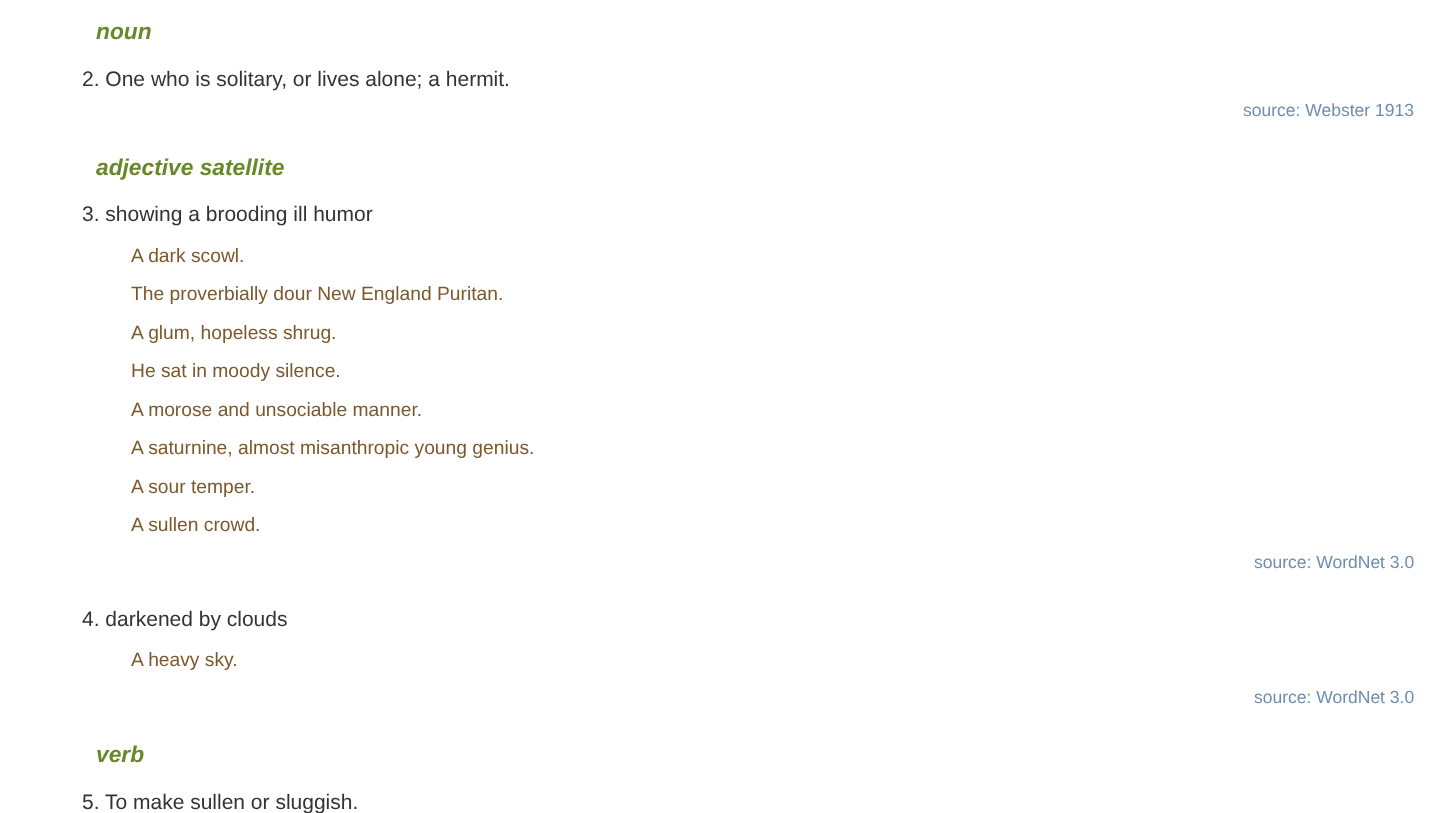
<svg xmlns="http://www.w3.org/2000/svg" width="1439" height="813">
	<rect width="100%" height="100%" fill="#FFFFFF" />
	<text x="96" y="39" font-family="Liberation Sans" font-size="22.75" font-weight="700" font-style="italic" fill="#698928">noun</text>
	<text x="82" y="86" font-family="Liberation Sans" font-size="21" fill="#333333">2. One who is solitary, or lives alone; a hermit.</text>
	<text x="1243" y="116" font-family="Liberation Sans" font-size="17.5" fill="#6E8DB0">source: Webster 1913</text>
	<text x="96" y="175" font-family="Liberation Sans" font-size="22.75" font-weight="700" font-style="italic" fill="#698928">adjective satellite</text>
	<text x="82" y="221" font-family="Liberation Sans" font-size="21" fill="#333333">3. showing a brooding ill humor</text>
	<g font-family="Liberation Sans" font-size="19.25" fill="#7C582D">
		<text x="131" y="262">A dark scowl.</text>
		<text x="131" y="300">The proverbially dour New England Puritan.</text>
		<text x="131" y="339">A glum, hopeless shrug.</text>
		<text x="131" y="377">He sat in moody silence.</text>
		<text x="131" y="416">A morose and unsociable manner.</text>
		<text x="131" y="454">A saturnine, almost misanthropic young genius.</text>
		<text x="131" y="493">A sour temper.</text>
		<text x="131" y="531">A sullen crowd.</text>
	</g>
	<text x="1254" y="568" font-family="Liberation Sans" font-size="17.5" fill="#6E8DB0">source: WordNet 3.0</text>
	<text x="82" y="626" font-family="Liberation Sans" font-size="21" fill="#333333">4. darkened by clouds</text>
	<text x="131" y="666" font-family="Liberation Sans" font-size="19.25" fill="#7C582D">A heavy sky.</text>
	<text x="1254" y="703" font-family="Liberation Sans" font-size="17.5" fill="#6E8DB0">source: WordNet 3.0</text>
	<text x="96" y="762" font-family="Liberation Sans" font-size="22.75" font-weight="700" font-style="italic" fill="#698928">verb</text>
	<text x="82" y="809" font-family="Liberation Sans" font-size="21" fill="#333333">5. To make sullen or sluggish.</text>
</svg>
